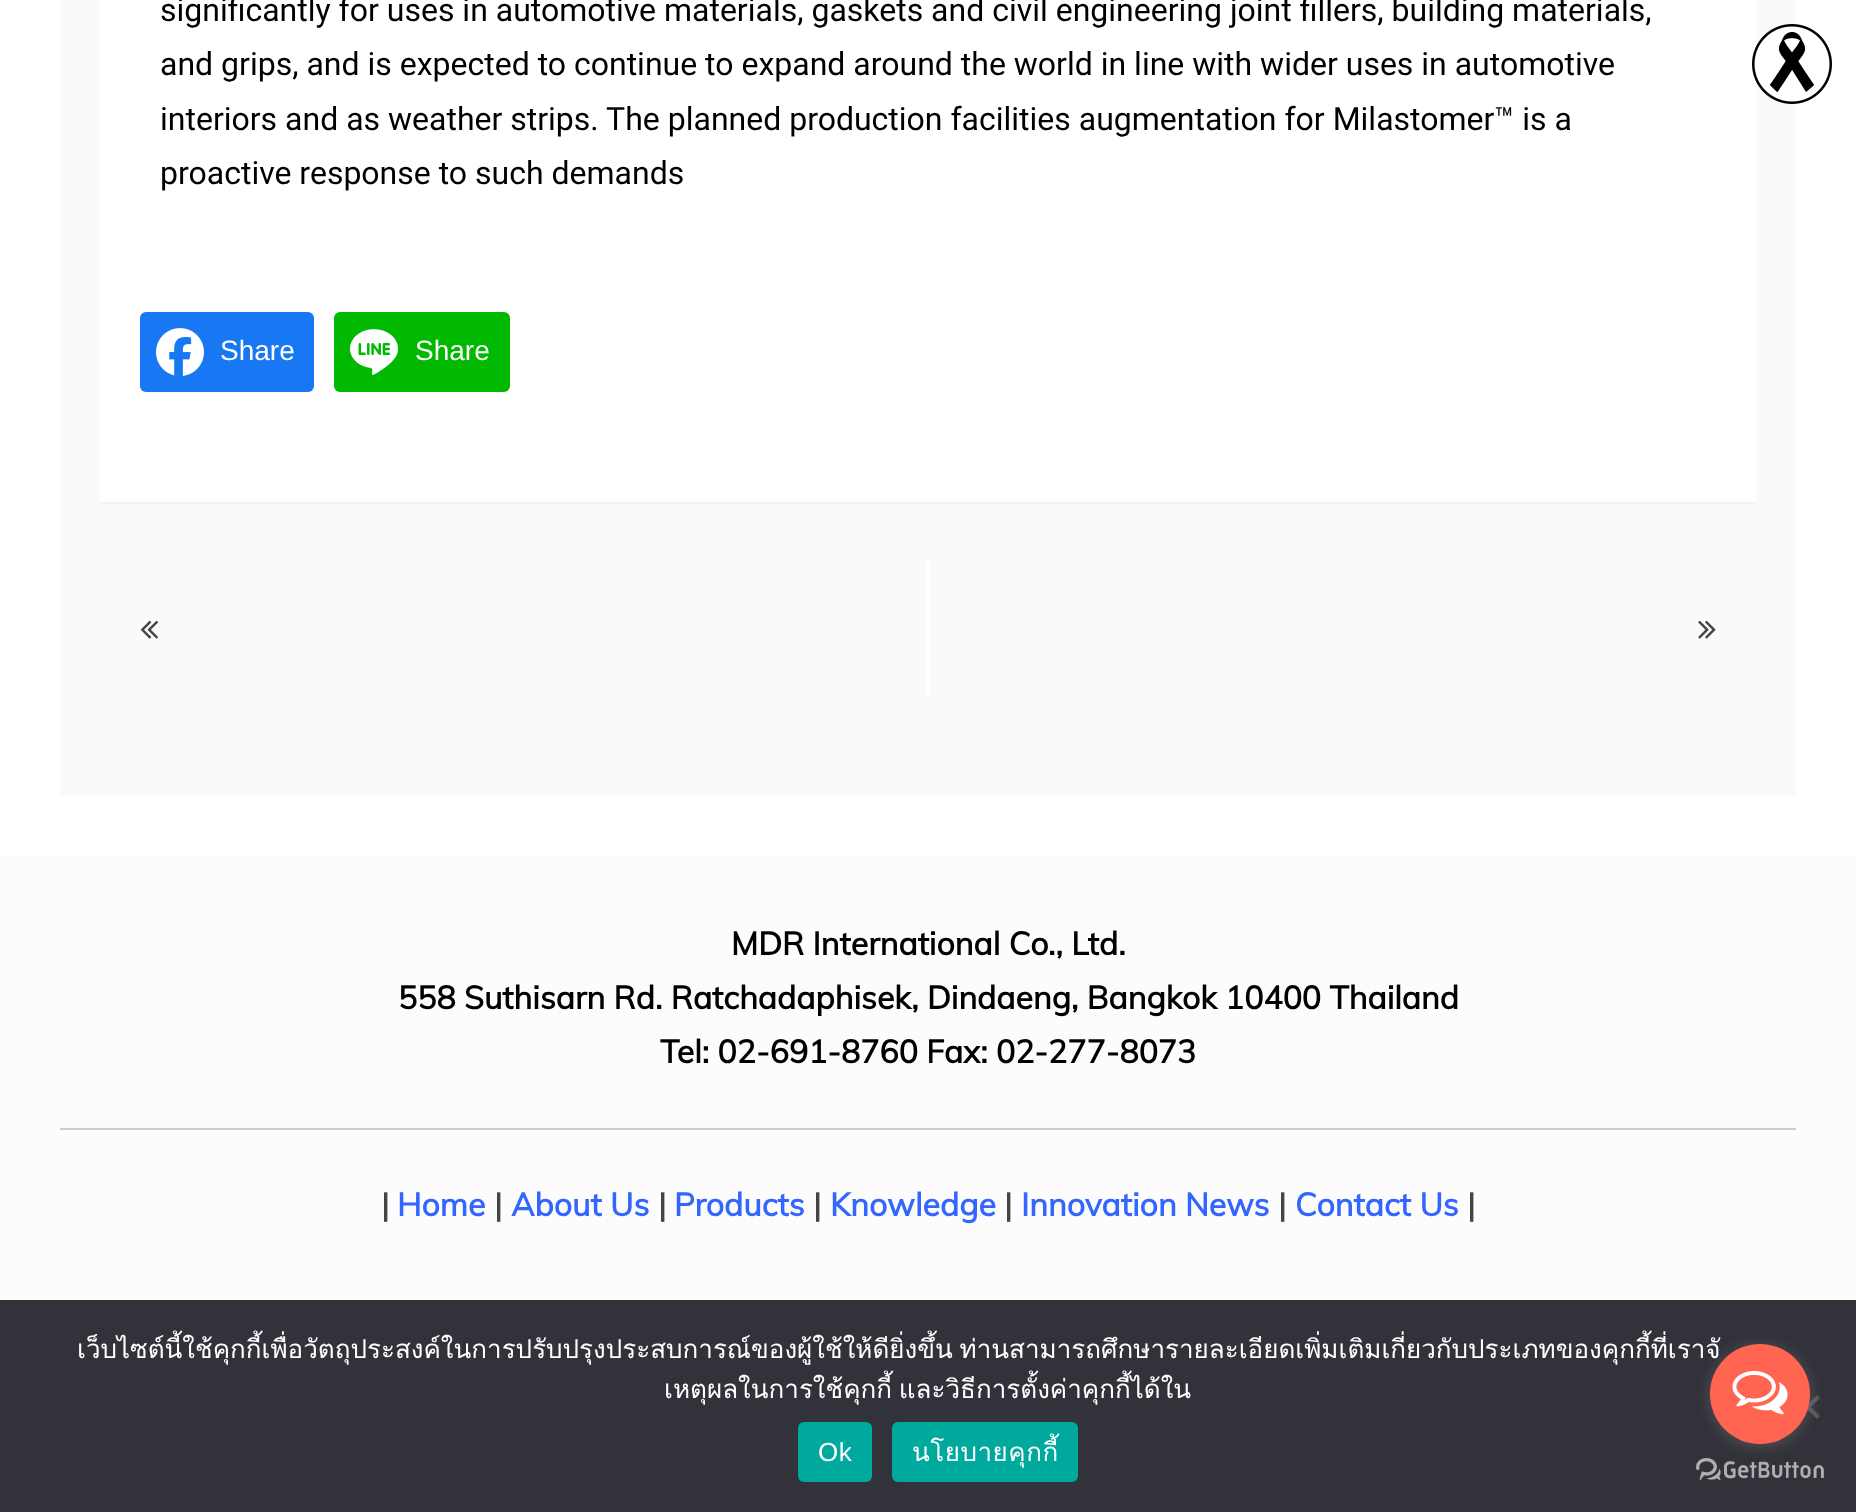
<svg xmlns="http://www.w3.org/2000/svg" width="1856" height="1512">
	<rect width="100%" height="100%" fill="#FFFFFF" />
	<rect x="60" y="0" width="1736" height="796" fill="#FAFAFA" />
	<rect x="100" y="502" width="1656" height="2" fill="#F3F3F3" />
	<rect x="100" y="0" width="1656" height="502" fill="#FFFFFF" />
	<g font-family="Roboto" font-size="32" fill="#000000">
		<text x="160" y="21">significantly for uses in automotive materials, gaskets and civil engineering joint fillers, building materials,</text>
		<text x="160" y="75">and grips, and is expected to continue to expand around the world in line with wider uses in automotive</text>
		<text x="160" y="130">interiors and as weather strips. The planned production facilities augmentation for Milastomer™ is a</text>
		<text x="160" y="184">proactive response to such demands</text>
	</g>
	<rect x="140" y="312" width="174" height="80" rx="6" fill="#1877F2" />
	<image x="156" y="328" width="48" height="48" href="assets/img1.png" />
	<text x="220" y="360" font-family="Liberation Sans" font-size="28" fill="#FFFFFF">Share</text>
	<rect x="334" y="312" width="176" height="80" rx="6" fill="#00B900" />
	<image x="350" y="329" width="48" height="46" href="assets/img2.png" />
	<text x="415" y="360" font-family="Liberation Sans" font-size="28" fill="#FFFFFF">Share</text>
	<rect x="926" y="562" width="4" height="134" fill="#FFFFFF" />
	<image x="140" y="620" width="18" height="19" href="assets/img3.png" />
	<image x="1698" y="620" width="18" height="19" href="assets/img4.png" />
	<rect x="0" y="856" width="1856" height="444" fill="#FCFCFC" />
	<g font-family="Muli" font-size="32" font-weight="700" fill="#000000">
		<text x="731" y="955">MDR International Co., Ltd.</text>
		<text x="398" y="1009">558 Suthisarn Rd. Ratchadaphisek, Dindaeng, Bangkok 10400 Thailand</text>
		<text x="660" y="1063">Tel: 02-691-8760 Fax: 02-277-8073</text>
	</g>
	<rect x="60" y="1128" width="1736" height="2" fill="#CCCCCC" />
	<text x="381" y="1216" font-family="Muli" font-size="32" font-weight="700" fill="#444444">|</text>
	<text x="397" y="1216" font-family="Muli" font-size="32" font-weight="700" fill="#3366FF">Home</text>
	<text x="494" y="1216" font-family="Muli" font-size="32" font-weight="700" fill="#444444">|</text>
	<text x="511" y="1216" font-family="Muli" font-size="32" font-weight="700" fill="#3366FF">About Us</text>
	<text x="658" y="1216" font-family="Muli" font-size="32" font-weight="700" fill="#444444">|</text>
	<text x="674" y="1216" font-family="Muli" font-size="32" font-weight="700" fill="#3366FF">Products</text>
	<text x="813" y="1216" font-family="Muli" font-size="32" font-weight="700" fill="#444444">|</text>
	<text x="830" y="1216" font-family="Muli" font-size="32" font-weight="700" fill="#3366FF">Knowledge</text>
	<text x="1004" y="1216" font-family="Muli" font-size="32" font-weight="700" fill="#444444">|</text>
	<text x="1021" y="1216" font-family="Muli" font-size="32" font-weight="700" fill="#3366FF">Innovation News</text>
	<text x="1278" y="1216" font-family="Muli" font-size="32" font-weight="700" fill="#444444">|</text>
	<text x="1295" y="1216" font-family="Muli" font-size="32" font-weight="700" fill="#3366FF">Contact Us</text>
	<text x="1467" y="1216" font-family="Muli" font-size="32" font-weight="700" fill="#444444">|</text>
	<image x="1752" y="24" width="80" height="80" href="assets/img5.png" />
	<rect x="0" y="1300" width="1856" height="212" fill="#32323A" />
	<g font-family="Loma" font-size="26" fill="#FFFFFF">
		<text x="77" y="1358" word-spacing="-2">เว็บไซต์นี้ใช้คุกกี้เพื่อวัตถุประสงค์ในการปรับปรุงประสบการณ์ของผู้ใช้ให้ดียิ่งขึ้น ท่านสามารถศึกษารายละเอียดเพิ่มเติมเกี่ยวกับประเภทของคุกกี้ที่เราจั</text>
		<text x="664" y="1398" word-spacing="-2">เหตุผลในการใช้คุกกี้ และวิธีการตั้งค่าคุกกี้ได้ใน</text>
	</g>
	<path d="M1817 1395L1820 1398L1799 1419L1796 1416Z" fill="#59595D" />
	<path d="M1796 1398L1799 1395L1820 1416L1817 1419Z" fill="#59595D" />
	<rect x="798" y="1422" width="74" height="60" rx="6" fill="#00A99D" />
	<text x="818" y="1461" font-family="Liberation Sans" font-size="26" letter-spacing="0.5" fill="#FFFFFF">Ok</text>
	<rect x="892" y="1422" width="186" height="60" rx="6" fill="#00A99D" />
	<text x="912" y="1461" font-family="Loma" font-size="26" letter-spacing="0.5" fill="#FFFFFF">นโยบายคุกกี้</text>
	<image x="1696" y="1458" width="128" height="22" href="assets/img7.png" />
	<rect x="1710" y="1346" width="100" height="100" rx="50" fill="#888888" fill-opacity="0.4" filter="blur(7px)" />
	<circle cx="1760" cy="1394" r="50" fill="#FF6550" />
	<image x="1732" y="1371" width="56" height="44" href="assets/img6.png" />
</svg>
